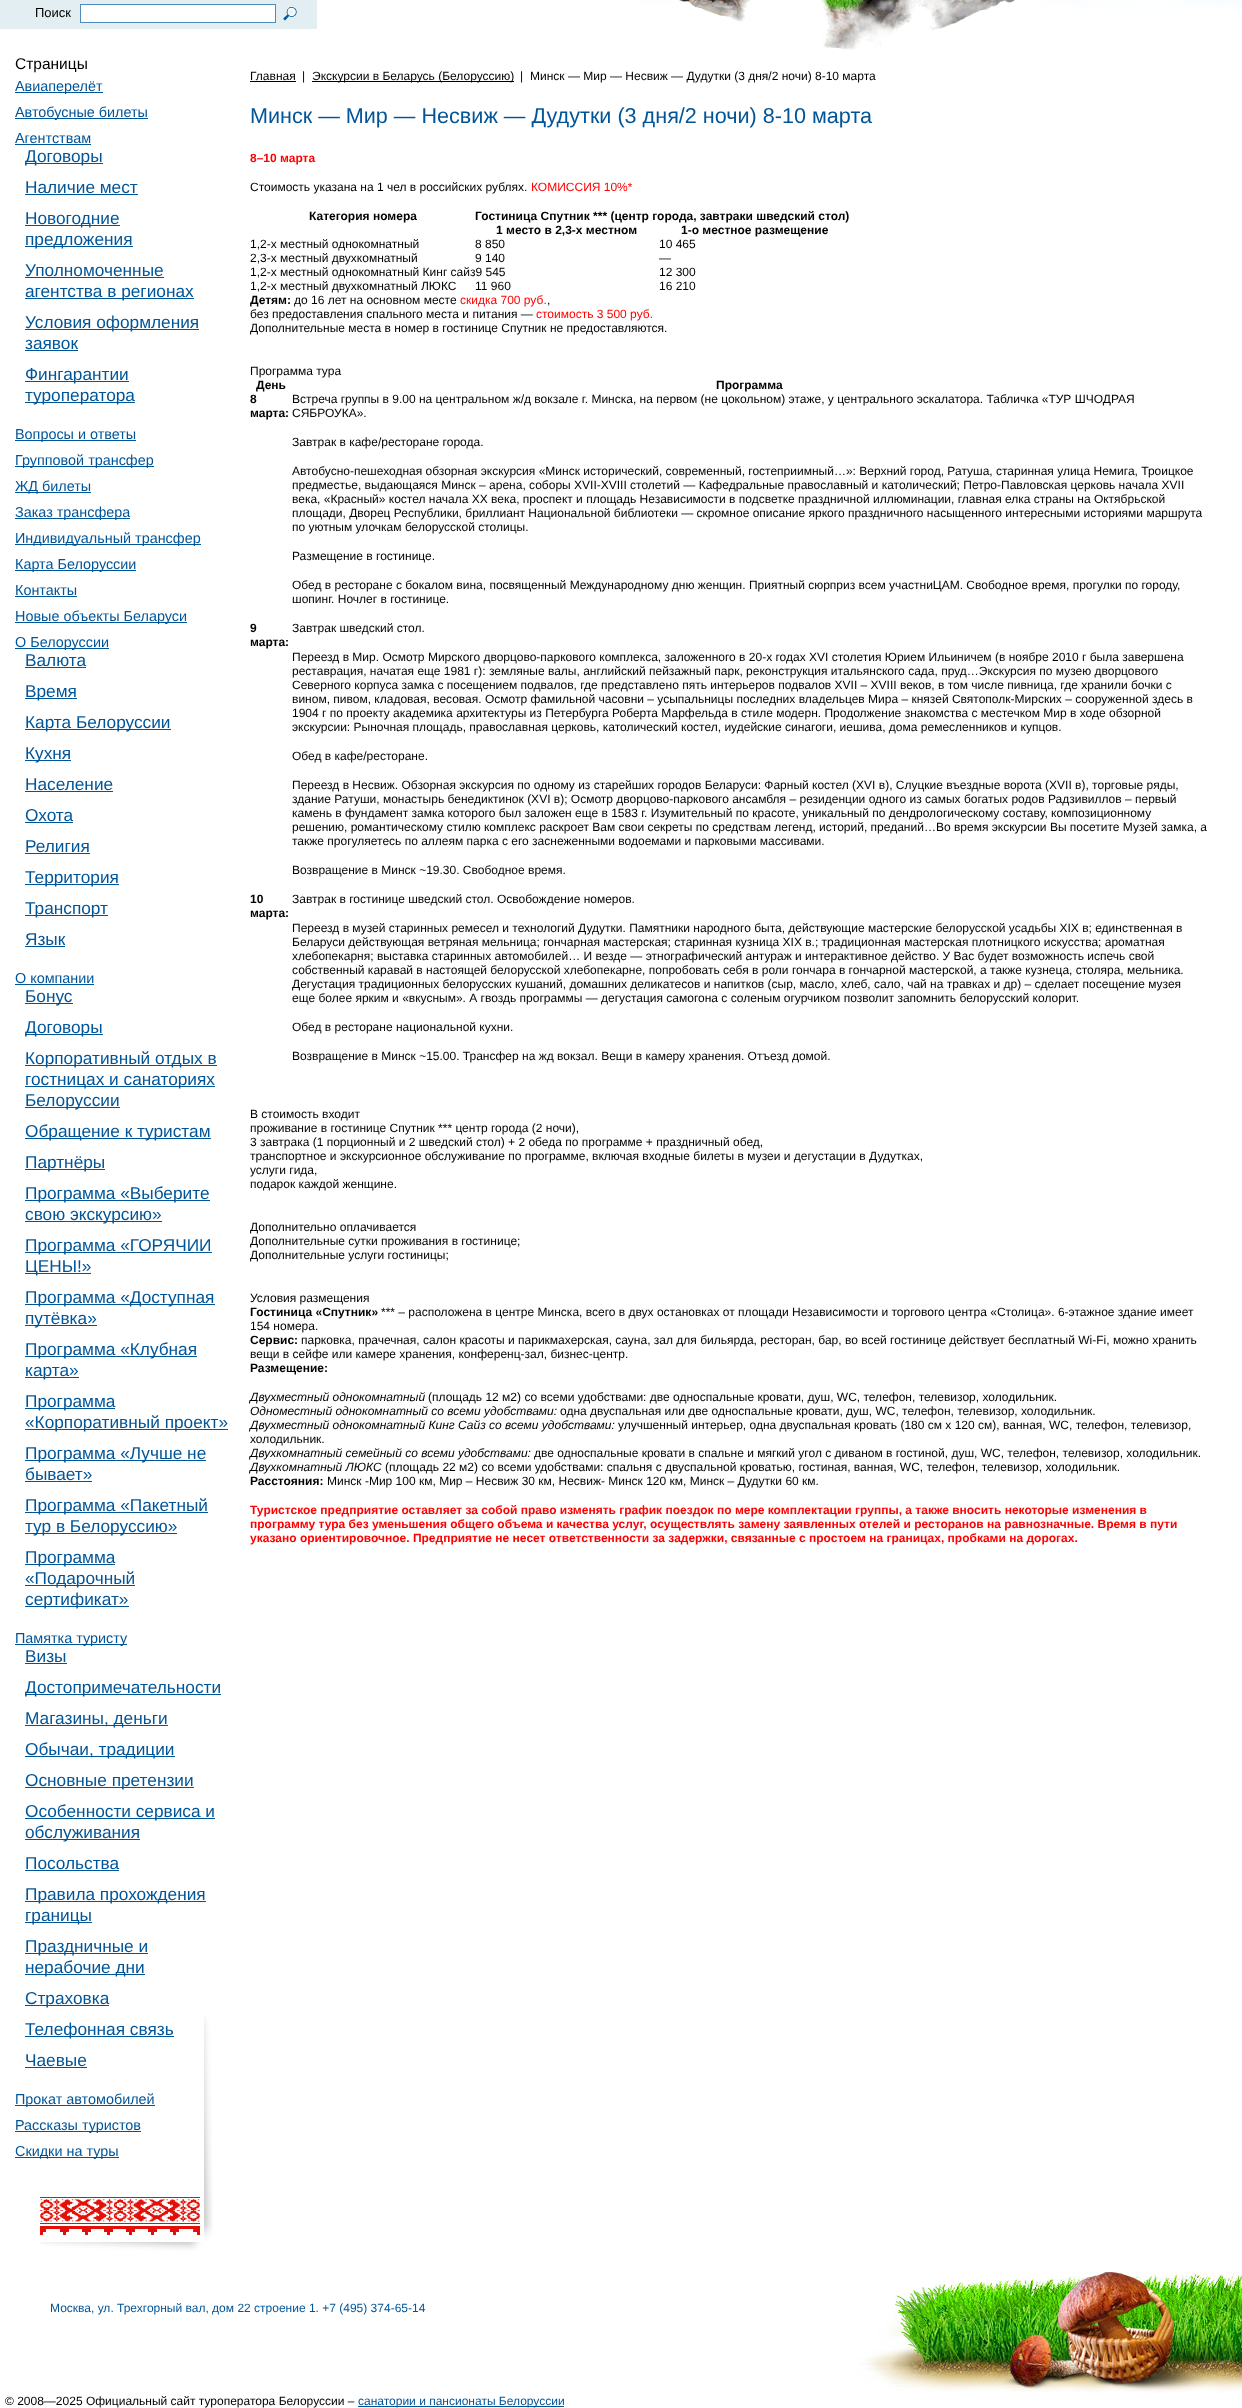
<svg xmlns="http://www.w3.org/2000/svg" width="1242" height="2408">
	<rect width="100%" height="100%" fill="#FFFFFF" />
	<image x="514" y="0" width="728" height="9" href="assets/img1.png" />
	<image x="679" y="0" width="336" height="50" href="assets/img4.png" />
	<image x="286" y="0" width="764" height="52" href="assets/img2.png" />
	<rect x="0" y="0" width="317" height="29" fill="#E2EEF1" />
	<text x="35" y="17" font-family="Liberation Sans" font-size="13" fill="#000000">Поиск</text>
	<rect x="80.5" y="4.5" width="195" height="18" fill="#FFFFFF" stroke="#4F8CBB" />
	<image x="283" y="7" width="14" height="14" href="assets/img3.png" />
	<image x="40" y="2015" width="173" height="236" href="assets/img5.png" />
	<text x="15" y="69" font-family="Liberation Sans" font-size="15.5" fill="#000000">Страницы</text>
	<rect x="15" y="92" width="88" height="1" fill="#005599" />
	<text x="15" y="91" font-family="Liberation Sans" font-size="14.4" fill="#005599">Авиаперелёт</text>
	<rect x="15" y="118" width="133" height="1" fill="#005599" />
	<g font-family="Liberation Sans" font-size="14.4" fill="#005599">
		<text x="15" y="117">Автобусные билеты</text>
		<text x="15" y="143">Агентствам</text>
	</g>
	<rect x="15" y="144" width="76" height="1" fill="#005599" />
	<rect x="25" y="163" width="78" height="1" fill="#005599" />
	<g font-family="Liberation Sans" font-size="17.25" fill="#005599">
		<text x="25" y="162">Договоры</text>
		<text x="25" y="193">Наличие мест</text>
	</g>
	<rect x="25" y="194" width="113" height="1" fill="#005599" />
	<rect x="25" y="225" width="95" height="1" fill="#005599" />
	<text x="25" y="224" font-family="Liberation Sans" font-size="17.25" fill="#005599">Новогодние</text>
	<rect x="25" y="246" width="108" height="1" fill="#005599" />
	<g font-family="Liberation Sans" font-size="17.25" fill="#005599">
		<text x="25" y="245">предложения</text>
		<text x="25" y="276">Уполномоченные</text>
	</g>
	<rect x="25" y="277" width="139" height="1" fill="#005599" />
	<rect x="25" y="298" width="169" height="1" fill="#005599" />
	<text x="25" y="297" font-family="Liberation Sans" font-size="17.25" fill="#005599">агентства в регионах</text>
	<rect x="25" y="329" width="174" height="1" fill="#005599" />
	<g font-family="Liberation Sans" font-size="17.25" fill="#005599">
		<text x="25" y="328">Условия оформления</text>
		<text x="25" y="349">заявок</text>
	</g>
	<rect x="25" y="350" width="53" height="1" fill="#005599" />
	<rect x="25" y="381" width="104" height="1" fill="#005599" />
	<text x="25" y="380" font-family="Liberation Sans" font-size="17.25" fill="#005599">Фингарантии</text>
	<rect x="25" y="402" width="110" height="1" fill="#005599" />
	<text x="25" y="401" font-family="Liberation Sans" font-size="17.25" fill="#005599">туроператора</text>
	<rect x="15" y="440" width="121" height="1" fill="#005599" />
	<text x="15" y="439" font-family="Liberation Sans" font-size="14.4" fill="#005599">Вопросы и ответы</text>
	<rect x="15" y="466" width="139" height="1" fill="#005599" />
	<text x="15" y="465" font-family="Liberation Sans" font-size="14.4" fill="#005599">Групповой трансфер</text>
	<rect x="15" y="492" width="76" height="1" fill="#005599" />
	<text x="15" y="491" font-family="Liberation Sans" font-size="14.4" fill="#005599">ЖД билеты</text>
	<rect x="15" y="518" width="115" height="1" fill="#005599" />
	<text x="15" y="517" font-family="Liberation Sans" font-size="14.4" fill="#005599">Заказ трансфера</text>
	<rect x="15" y="544" width="186" height="1" fill="#005599" />
	<text x="15" y="543" font-family="Liberation Sans" font-size="14.4" fill="#005599">Индивидуальный трансфер</text>
	<rect x="15" y="570" width="121" height="1" fill="#005599" />
	<g font-family="Liberation Sans" font-size="14.4" fill="#005599">
		<text x="15" y="569">Карта Белоруссии</text>
		<text x="15" y="595">Контакты</text>
	</g>
	<rect x="15" y="596" width="62" height="1" fill="#005599" />
	<rect x="15" y="622" width="172" height="1" fill="#005599" />
	<text x="15" y="621" font-family="Liberation Sans" font-size="14.4" fill="#005599">Новые объекты Беларуси</text>
	<rect x="15" y="648" width="94" height="1" fill="#005599" />
	<text x="15" y="647" font-family="Liberation Sans" font-size="14.4" fill="#005599">О Белоруссии</text>
	<text x="25" y="666" font-family="Liberation Sans" font-size="17.25" fill="#005599">Валюта</text>
	<rect x="25" y="667" width="61" height="1" fill="#005599" />
	<rect x="25" y="698" width="52" height="1" fill="#005599" />
	<text x="25" y="697" font-family="Liberation Sans" font-size="17.25" fill="#005599">Время</text>
	<rect x="25" y="729" width="146" height="1" fill="#005599" />
	<text x="25" y="728" font-family="Liberation Sans" font-size="17.25" fill="#005599">Карта Белоруссии</text>
	<rect x="25" y="760" width="46" height="1" fill="#005599" />
	<g font-family="Liberation Sans" font-size="17.25" fill="#005599">
		<text x="25" y="759">Кухня</text>
		<text x="25" y="790">Население</text>
	</g>
	<rect x="25" y="791" width="88" height="1" fill="#005599" />
	<text x="25" y="821" font-family="Liberation Sans" font-size="17.25" fill="#005599">Охота</text>
	<rect x="25" y="822" width="48" height="1" fill="#005599" />
	<text x="25" y="852" font-family="Liberation Sans" font-size="17.25" fill="#005599">Религия</text>
	<rect x="25" y="853" width="65" height="1" fill="#005599" />
	<rect x="25" y="884" width="94" height="1" fill="#005599" />
	<text x="25" y="883" font-family="Liberation Sans" font-size="17.25" fill="#005599">Территория</text>
	<rect x="25" y="915" width="83" height="1" fill="#005599" />
	<g font-family="Liberation Sans" font-size="17.25" fill="#005599">
		<text x="25" y="914">Транспорт</text>
		<text x="25" y="945">Язык</text>
	</g>
	<rect x="25" y="946" width="40" height="1" fill="#005599" />
	<text x="15" y="983" font-family="Liberation Sans" font-size="14.4" fill="#005599">О компании</text>
	<rect x="15" y="984" width="79" height="1" fill="#005599" />
	<rect x="25" y="1003" width="48" height="1" fill="#005599" />
	<text x="25" y="1002" font-family="Liberation Sans" font-size="17.25" fill="#005599">Бонус</text>
	<rect x="25" y="1034" width="78" height="1" fill="#005599" />
	<text x="25" y="1033" font-family="Liberation Sans" font-size="17.25" fill="#005599">Договоры</text>
	<rect x="25" y="1065" width="192" height="1" fill="#005599" />
	<text x="25" y="1064" font-family="Liberation Sans" font-size="17.25" fill="#005599">Корпоративный отдых в</text>
	<rect x="25" y="1086" width="190" height="1" fill="#005599" />
	<text x="25" y="1085" font-family="Liberation Sans" font-size="17.25" fill="#005599">гостницах и санаториях</text>
	<rect x="25" y="1107" width="95" height="1" fill="#005599" />
	<text x="25" y="1106" font-family="Liberation Sans" font-size="17.25" fill="#005599">Белоруссии</text>
	<rect x="25" y="1138" width="186" height="1" fill="#005599" />
	<text x="25" y="1137" font-family="Liberation Sans" font-size="17.25" fill="#005599">Обращение к туристам</text>
	<rect x="25" y="1169" width="80" height="1" fill="#005599" />
	<text x="25" y="1168" font-family="Liberation Sans" font-size="17.25" fill="#005599">Партнёры</text>
	<rect x="25" y="1200" width="185" height="1" fill="#005599" />
	<text x="25" y="1199" font-family="Liberation Sans" font-size="17.25" fill="#005599">Программа «Выберите</text>
	<rect x="25" y="1221" width="137" height="1" fill="#005599" />
	<text x="25" y="1220" font-family="Liberation Sans" font-size="17.25" fill="#005599">свою экскурсию»</text>
	<rect x="25" y="1252" width="187" height="1" fill="#005599" />
	<text x="25" y="1251" font-family="Liberation Sans" font-size="17.25" fill="#005599">Программа «ГОРЯЧИИ</text>
	<rect x="25" y="1273" width="66" height="1" fill="#005599" />
	<text x="25" y="1272" font-family="Liberation Sans" font-size="17.25" fill="#005599">ЦЕНЫ!»</text>
	<rect x="25" y="1304" width="190" height="1" fill="#005599" />
	<text x="25" y="1303" font-family="Liberation Sans" font-size="17.25" fill="#005599">Программа «Доступная</text>
	<rect x="25" y="1325" width="72" height="1" fill="#005599" />
	<text x="25" y="1324" font-family="Liberation Sans" font-size="17.25" fill="#005599">путёвка»</text>
	<rect x="25" y="1356" width="172" height="1" fill="#005599" />
	<text x="25" y="1355" font-family="Liberation Sans" font-size="17.25" fill="#005599">Программа «Клубная</text>
	<rect x="25" y="1377" width="54" height="1" fill="#005599" />
	<text x="25" y="1376" font-family="Liberation Sans" font-size="17.25" fill="#005599">карта»</text>
	<rect x="25" y="1408" width="90" height="1" fill="#005599" />
	<text x="25" y="1407" font-family="Liberation Sans" font-size="17.25" fill="#005599">Программа</text>
	<rect x="25" y="1429" width="203" height="1" fill="#005599" />
	<text x="25" y="1428" font-family="Liberation Sans" font-size="17.25" fill="#005599">«Корпоративный проект»</text>
	<rect x="25" y="1460" width="181" height="1" fill="#005599" />
	<g font-family="Liberation Sans" font-size="17.25" fill="#005599">
		<text x="25" y="1459">Программа «Лучше не</text>
		<text x="25" y="1480">бывает»</text>
	</g>
	<rect x="25" y="1481" width="67" height="1" fill="#005599" />
	<rect x="25" y="1512" width="183" height="1" fill="#005599" />
	<text x="25" y="1511" font-family="Liberation Sans" font-size="17.25" fill="#005599">Программа «Пакетный</text>
	<rect x="25" y="1533" width="152" height="1" fill="#005599" />
	<text x="25" y="1532" font-family="Liberation Sans" font-size="17.25" fill="#005599">тур в Белоруссию»</text>
	<rect x="25" y="1564" width="90" height="1" fill="#005599" />
	<text x="25" y="1563" font-family="Liberation Sans" font-size="17.25" fill="#005599">Программа</text>
	<rect x="25" y="1585" width="110" height="1" fill="#005599" />
	<text x="25" y="1584" font-family="Liberation Sans" font-size="17.25" fill="#005599">«Подарочный</text>
	<rect x="25" y="1606" width="104" height="1" fill="#005599" />
	<text x="25" y="1605" font-family="Liberation Sans" font-size="17.25" fill="#005599">сертификат»</text>
	<rect x="15" y="1644" width="112" height="1" fill="#005599" />
	<text x="15" y="1643" font-family="Liberation Sans" font-size="14.4" fill="#005599">Памятка туристу</text>
	<text x="25" y="1662" font-family="Liberation Sans" font-size="17.25" fill="#005599">Визы</text>
	<rect x="25" y="1663" width="42" height="1" fill="#005599" />
	<rect x="25" y="1694" width="196" height="1" fill="#005599" />
	<text x="25" y="1693" font-family="Liberation Sans" font-size="17.25" fill="#005599">Достопримечательности</text>
	<rect x="25" y="1725" width="143" height="1" fill="#005599" />
	<text x="25" y="1724" font-family="Liberation Sans" font-size="17.25" fill="#005599">Магазины, деньги</text>
	<rect x="25" y="1756" width="150" height="1" fill="#005599" />
	<text x="25" y="1755" font-family="Liberation Sans" font-size="17.25" fill="#005599">Обычаи, традиции</text>
	<rect x="25" y="1787" width="169" height="1" fill="#005599" />
	<text x="25" y="1786" font-family="Liberation Sans" font-size="17.25" fill="#005599">Основные претензии</text>
	<rect x="25" y="1818" width="190" height="1" fill="#005599" />
	<text x="25" y="1817" font-family="Liberation Sans" font-size="17.25" fill="#005599">Особенности сервиса и</text>
	<rect x="25" y="1839" width="115" height="1" fill="#005599" />
	<g font-family="Liberation Sans" font-size="17.25" fill="#005599">
		<text x="25" y="1838">обслуживания</text>
		<text x="25" y="1869">Посольства</text>
	</g>
	<rect x="25" y="1870" width="94" height="1" fill="#005599" />
	<rect x="25" y="1901" width="181" height="1" fill="#005599" />
	<text x="25" y="1900" font-family="Liberation Sans" font-size="17.25" fill="#005599">Правила прохождения</text>
	<rect x="25" y="1922" width="67" height="1" fill="#005599" />
	<text x="25" y="1921" font-family="Liberation Sans" font-size="17.25" fill="#005599">границы</text>
	<rect x="25" y="1953" width="123" height="1" fill="#005599" />
	<text x="25" y="1952" font-family="Liberation Sans" font-size="17.25" fill="#005599">Праздничные и</text>
	<rect x="25" y="1974" width="120" height="1" fill="#005599" />
	<text x="25" y="1973" font-family="Liberation Sans" font-size="17.25" fill="#005599">нерабочие дни</text>
	<rect x="25" y="2005" width="84" height="1" fill="#005599" />
	<text x="25" y="2004" font-family="Liberation Sans" font-size="17.25" fill="#005599">Страховка</text>
	<rect x="25" y="2036" width="149" height="1" fill="#005599" />
	<g font-family="Liberation Sans" font-size="17.25" fill="#005599">
		<text x="25" y="2035">Телефонная связь</text>
		<text x="25" y="2066">Чаевые</text>
	</g>
	<rect x="25" y="2067" width="62" height="1" fill="#005599" />
	<rect x="15" y="2105" width="140" height="1" fill="#005599" />
	<text x="15" y="2104" font-family="Liberation Sans" font-size="14.4" fill="#005599">Прокат автомобилей</text>
	<rect x="15" y="2131" width="126" height="1" fill="#005599" />
	<text x="15" y="2130" font-family="Liberation Sans" font-size="14.4" fill="#005599">Рассказы туристов</text>
	<rect x="15" y="2157" width="104" height="1" fill="#005599" />
	<text x="15" y="2156" font-family="Liberation Sans" font-size="14.4" fill="#005599">Скидки на туры</text>
	<text x="250" y="80" font-family="Liberation Sans" font-size="12" fill="#000000">Главная</text>
	<rect x="250" y="81" width="46" height="1" fill="#000000" />
	<text x="302" y="80" font-family="Liberation Sans" font-size="12" fill="#000000">|</text>
	<rect x="312" y="81" width="202" height="1" fill="#000000" />
	<g font-family="Liberation Sans" font-size="12" fill="#000000">
		<text x="312" y="80">Экскурсии в Беларусь (Белоруссию)</text>
		<text x="520" y="80">|</text>
		<text x="530" y="80">Минск — Мир — Несвиж — Дудутки (3 дня/2 ночи) 8-10 марта</text>
	</g>
	<text x="250" y="123" font-family="Liberation Sans" font-size="21.6" fill="#005599">Минск — Мир — Несвиж — Дудутки (3 дня/2 ночи) 8-10 марта</text>
	<text x="250" y="162" font-family="Liberation Sans" font-size="12" font-weight="700" fill="#FF0000">8–10 марта</text>
	<text x="250" y="191" font-family="Liberation Sans" font-size="12" fill="#000000">Стоимость указана на 1 чел в российских рублях.</text>
	<text x="531" y="191" font-family="Liberation Sans" font-size="12" fill="#FF0000">КОМИССИЯ 10%*</text>
	<g font-family="Liberation Sans" font-size="12" font-weight="700" fill="#000000">
		<text x="309" y="220">Категория номера</text>
		<text x="475" y="220">Гостиница Спутник *** (центр города, завтраки шведский стол)</text>
		<text x="496" y="234">1 место в 2,3-х местном</text>
		<text x="681" y="234">1-о местное размещение</text>
	</g>
	<g font-family="Liberation Sans" font-size="12" fill="#000000">
		<text x="250" y="248">1,2-х местный однокомнатный</text>
		<text x="475" y="248">8 850</text>
		<text x="659" y="248">10 465</text>
		<text x="250" y="262">2,3-х местный двухкомнатный</text>
		<text x="475" y="262">9 140</text>
		<text x="659" y="262">—</text>
		<text x="250" y="276">1,2-х местный однокомнатный Кинг сайз9 545</text>
		<text x="659" y="276">12 300</text>
		<text x="250" y="290">1,2-х местный двухкомнатный ЛЮКС</text>
		<text x="475" y="290">11 960</text>
		<text x="659" y="290">16 210</text>
	</g>
	<text x="250" y="304" font-family="Liberation Sans" font-size="12" font-weight="700" fill="#000000">Детям:</text>
	<text x="294" y="304" font-family="Liberation Sans" font-size="12" fill="#000000">до 16 лет на основном месте</text>
	<text x="460" y="304" font-family="Liberation Sans" font-size="12" fill="#FF0000">скидка 700 руб.</text>
	<g font-family="Liberation Sans" font-size="12" fill="#000000">
		<text x="547" y="304">,</text>
		<text x="250" y="318">без предоставления спального места и питания —</text>
	</g>
	<text x="536" y="318" font-family="Liberation Sans" font-size="12" fill="#FF0000">стоимость 3 500 руб.</text>
	<g font-family="Liberation Sans" font-size="12" fill="#000000">
		<text x="250" y="332">Дополнительные места в номер в гостинице Спутник не предоставляются.</text>
		<text x="250" y="375">Программа тура</text>
	</g>
	<g font-family="Liberation Sans" font-size="12" font-weight="700" fill="#000000">
		<text x="256" y="389">День</text>
		<text x="716" y="389">Программа</text>
		<text x="250" y="403">8</text>
		<text x="250" y="417">марта:</text>
	</g>
	<g font-family="Liberation Sans" font-size="12" fill="#000000">
		<text x="292" y="403">Встреча группы в 9.00 на центральном ж/д вокзале г. Минска, на первом (не цокольном) этаже, у центрального эскалатора. Табличка «ТУР ШЧОДРАЯ</text>
		<text x="292" y="417">СЯБРОУКА».</text>
		<text x="292" y="446">Завтрак в кафе/ресторане города.</text>
		<text x="292" y="475">Автобусно-пешеходная обзорная экскурсия «Минск исторический, современный, гостеприимный…»: Верхний город, Ратуша, старинная улица Немига, Троицкое</text>
		<text x="292" y="489">предместье, выдающаяся Минск – арена, соборы ХVII-XVIII столетий — Кафедральные православный и католический; Петро-Павловская церковь начала ХVII</text>
		<text x="292" y="503">века, «Красный» костел начала ХХ века, проспект и площадь Независимости в подсветке праздничной иллюминации, главная елка страны на Октябрьской</text>
		<text x="292" y="517">площади, Дворец Республики, бриллиант Национальной библиотеки — скромное описание яркого праздничного насыщенного интересными историями маршрута</text>
		<text x="292" y="531">по уютным улочкам белорусской столицы.</text>
		<text x="292" y="560">Размещение в гостинице.</text>
		<text x="292" y="589">Обед в ресторане с бокалом вина, посвященный Международному дню женщин. Приятный сюрприз всем участниЦАМ. Свободное время, прогулки по городу,</text>
		<text x="292" y="603">шопинг. Ночлег в гостинице.</text>
	</g>
	<g font-family="Liberation Sans" font-size="12" font-weight="700" fill="#000000">
		<text x="250" y="632">9</text>
		<text x="250" y="646">марта:</text>
	</g>
	<g font-family="Liberation Sans" font-size="12" fill="#000000">
		<text x="292" y="632">Завтрак шведский стол.</text>
		<text x="292" y="661">Переезд в Мир. Осмотр Мирского дворцово-паркового комплекса, заложенного в 20-х годах XVI столетия Юрием Ильиничем (в ноябре 2010 г была завершена</text>
		<text x="292" y="675">реставрация, начатая еще 1981 г): земляные валы, английский пейзажный парк, реконструкция итальянского сада, пруд…Экскурсия по музею дворцового</text>
		<text x="292" y="689">Северного корпуса замка с посещением подвалов, где представлено пять интерьеров подвалов XVII – XVIII веков, в том числе пивница, где хранили бочки с</text>
		<text x="292" y="703">вином, пивом, кладовая, весовая. Осмотр фамильной часовни – усыпальницы последних владельцев Мира – князей Святополк-Мирских – сооруженной здесь в</text>
		<text x="292" y="717">1904 г по проекту академика архитектуры из Петербурга Роберта Марфельда в стиле модерн. Продолжение знакомства с местечком Мир в ходе обзорной</text>
		<text x="292" y="731">экскурсии: Рыночная площадь, православная церковь, католический костел, иудейские синагоги, иешива, дома ремесленников и купцов.</text>
		<text x="292" y="760">Обед в кафе/ресторане.</text>
		<text x="292" y="789">Переезд в Несвиж. Обзорная экскурсия по одному из старейших городов Беларуси: Фарный костел (XVI в), Слуцкие въездные ворота (XVII в), торговые ряды,</text>
		<text x="292" y="803">здание Ратуши, монастырь бенедиктинок (XVI в); Осмотр дворцово-паркового ансамбля – резиденции одного из самых богатых родов Радзивиллов – первый</text>
		<text x="292" y="817">камень в фундамент замка которого был заложен еще в 1583 г. Изумительный по красоте, уникальный по дендрологическому составу, композиционному</text>
		<text x="292" y="831">решению, романтическому стилю комплекс раскроет Вам свои секреты по средствам легенд, историй, преданий…Во время экскурсии Вы посетите Музей замка, а</text>
		<text x="292" y="845">также прогуляетесь по аллеям парка с его заснеженными водоемами и парковыми массивами.</text>
		<text x="292" y="874">Возвращение в Минск ~19.30. Свободное время.</text>
	</g>
	<g font-family="Liberation Sans" font-size="12" font-weight="700" fill="#000000">
		<text x="250" y="903">10</text>
		<text x="250" y="917">марта:</text>
	</g>
	<g font-family="Liberation Sans" font-size="12" fill="#000000">
		<text x="292" y="903">Завтрак в гостинице шведский стол. Освобождение номеров.</text>
		<text x="292" y="932">Переезд в музей старинных ремесел и технологий Дудутки. Памятники народного быта, действующие мастерские белорусской усадьбы XIX в; единственная в</text>
		<text x="292" y="946">Беларуси действующая ветряная мельница; гончарная мастерская; старинная кузница XIX в.; традиционная мастерская плотницкого искусства; ароматная</text>
		<text x="292" y="960">хлебопекарня; выставка старинных автомобилей… И везде — этнографический антураж и интерактивное действо. У Вас будет возможность испечь свой</text>
		<text x="292" y="974">собственный каравай в настоящей белорусской хлебопекарне, попробовать себя в роли гончара в гончарной мастерской, а также кузнеца, столяра, мельника.</text>
		<text x="292" y="988">Дегустация традиционных белорусских кушаний, домашних деликатесов и напитков (сыр, масло, хлеб, сало, чай на травках и др) – сделает посещение музея</text>
		<text x="292" y="1002">еще более ярким и «вкусным». А гвоздь программы — дегустация самогона с соленым огурчиком позволит запомнить белорусский колорит.</text>
		<text x="292" y="1031">Обед в ресторане национальной кухни.</text>
		<text x="292" y="1060">Возвращение в Минск ~15.00. Трансфер на жд вокзал. Вещи в камеру хранения. Отъезд домой.</text>
		<text x="250" y="1118">В стоимость входит</text>
		<text x="250" y="1132">проживание в гостинице Спутник *** центр города (2 ночи),</text>
		<text x="250" y="1146">3 завтрака (1 порционный и 2 шведский стол) + 2 обеда по программе + праздничный обед,</text>
		<text x="250" y="1160">транспортное и экскурсионное обслуживание по программе, включая входные билеты в музеи и дегустации в Дудутках,</text>
		<text x="250" y="1174">услуги гида,</text>
		<text x="250" y="1188">подарок каждой женщине.</text>
		<text x="250" y="1231">Дополнительно оплачивается</text>
		<text x="250" y="1245">Дополнительные сутки проживания в гостинице;</text>
		<text x="250" y="1259">Дополнительные услуги гостиницы;</text>
		<text x="250" y="1302">Условия размещения</text>
	</g>
	<text x="250" y="1316" font-family="Liberation Sans" font-size="12" font-weight="700" fill="#000000">Гостиница «Спутник»</text>
	<g font-family="Liberation Sans" font-size="12" fill="#000000">
		<text x="381" y="1316">*** – расположена в центре Минска, всего в двух остановках от площади Независимости и торгового центра «Столица». 6-этажное здание имеет</text>
		<text x="250" y="1330">154 номера.</text>
	</g>
	<text x="250" y="1344" font-family="Liberation Sans" font-size="12" font-weight="700" fill="#000000">Сервис:</text>
	<g font-family="Liberation Sans" font-size="12" fill="#000000">
		<text x="301" y="1344">парковка, прачечная, салон красоты и парикмахерская, сауна, зал для бильярда, ресторан, бар, во всей гостинице действует бесплатный Wi-Fi, можно хранить</text>
		<text x="250" y="1358">вещи в сейфе или камере хранения, конференц-зал, бизнес-центр.</text>
	</g>
	<text x="250" y="1372" font-family="Liberation Sans" font-size="12" font-weight="700" fill="#000000">Размещение:</text>
	<text x="250" y="1401" font-family="Liberation Sans" font-size="12" font-style="italic" fill="#000000">Двухместный однокомнатный</text>
	<text x="428" y="1401" font-family="Liberation Sans" font-size="12" fill="#000000">(площадь 12 м2) со всеми удобствами: две односпальные кровати, душ, WC, телефон, телевизор, холодильник.</text>
	<text x="250" y="1415" font-family="Liberation Sans" font-size="12" font-style="italic" fill="#000000">Одноместный однокомнатный со всеми удобствами:</text>
	<text x="560" y="1415" font-family="Liberation Sans" font-size="12" fill="#000000">одна двуспальная или две односпальные кровати, душ, WC, телефон, телевизор, холодильник.</text>
	<text x="250" y="1429" font-family="Liberation Sans" font-size="12" font-style="italic" fill="#000000">Двухместный однокомнатный Кинг Сайз со всеми удобствами:</text>
	<g font-family="Liberation Sans" font-size="12" fill="#000000">
		<text x="618" y="1429">улучшенный интерьер, одна двуспальная кровать (180 см x 120 см), ванная, WC, телефон, телевизор,</text>
		<text x="250" y="1443">холодильник.</text>
	</g>
	<text x="250" y="1457" font-family="Liberation Sans" font-size="12" font-style="italic" fill="#000000">Двухкомнатный семейный со всеми удобствами:</text>
	<text x="534" y="1457" font-family="Liberation Sans" font-size="12" fill="#000000">две односпальные кровати в спальне и мягкий угол с диваном в гостиной, душ, WC, телефон, телевизор, холодильник.</text>
	<text x="250" y="1471" font-family="Liberation Sans" font-size="12" font-style="italic" fill="#000000">Двухкомнатный ЛЮКС</text>
	<text x="385" y="1471" font-family="Liberation Sans" font-size="12" fill="#000000">(площадь 22 м2) со всеми удобствами: спальня с двуспальной кроватью, гостиная, ванная, WC, телефон, телевизор, холодильник.</text>
	<text x="250" y="1485" font-family="Liberation Sans" font-size="12" font-weight="700" fill="#000000">Расстояния:</text>
	<text x="327" y="1485" font-family="Liberation Sans" font-size="12" fill="#000000">Минск -Мир 100 км, Мир – Несвиж 30 км, Несвиж- Минск 120 км, Минск – Дудутки 60 км.</text>
	<g font-family="Liberation Sans" font-size="12" font-weight="700" fill="#FF0000">
		<text x="250" y="1514">Туристское предприятие оставляет за собой право изменять график поездок по мере комплектации группы, а также вносить некоторые изменения в</text>
		<text x="250" y="1528">программу тура без уменьшения общего объема и качества услуг, осуществлять замену заявленных отелей и ресторанов на равнозначные. Время в пути</text>
		<text x="250" y="1542">указано ориентировочное. Предприятие не несет ответственности за задержки, связанные с простоем на границах, пробками на дорогах.</text>
	</g>
	<image x="858" y="2271" width="384" height="122" href="assets/img6.png" />
	<text x="50" y="2312" font-family="Liberation Sans" font-size="12" fill="#005599">Москва, ул. Трехгорный вал, дом 22 строение 1. +7 (495) 374-65-14</text>
	<text x="5" y="2405" font-family="Liberation Sans" font-size="12" fill="#000000">© 2008—2025 Официальный сайт туроператора Белоруссии –</text>
	<rect x="358" y="2406" width="206" height="1" fill="#005599" />
	<text x="358" y="2405" font-family="Liberation Sans" font-size="12" fill="#005599">санатории и пансионаты Белоруссии</text>
</svg>
